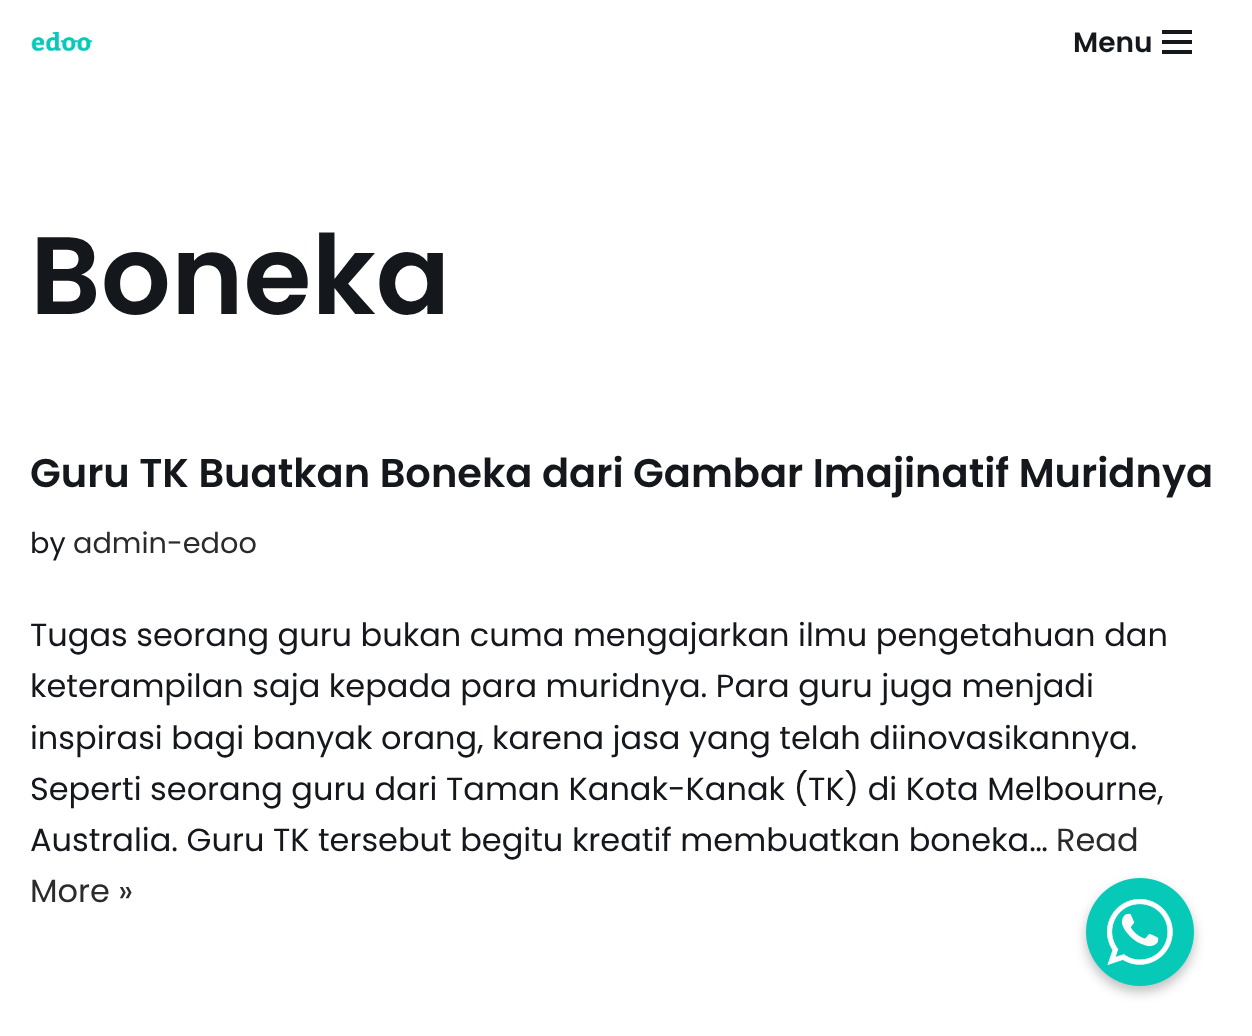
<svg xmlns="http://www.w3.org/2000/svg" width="1252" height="1036">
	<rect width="100%" height="100%" fill="#FFFFFF" />
	<image x="31" y="32" width="62" height="20" href="assets/img1.png" />
	<text x="1073" y="52" font-family="Poppins" font-size="28" font-weight="600" fill="#14171C">Menu</text>
	<rect x="1162" y="30" width="30" height="4" fill="#14171C" />
	<rect x="1162" y="40" width="30" height="4" fill="#14171C" />
	<rect x="1162" y="50" width="30" height="4" fill="#14171C" />
	<text x="30" y="314" font-family="Poppins" font-size="110" font-weight="600" fill="#14171C">Boneka</text>
	<text x="30" y="487" font-family="Poppins" font-size="40" font-weight="600" fill="#14171C">Guru TK Buatkan Boneka dari Gambar Imajinatif Muridnya</text>
	<text x="30" y="553" font-family="Poppins" font-size="28.75" fill="#14171C">by</text>
	<text x="73" y="553" font-family="Poppins" font-size="28.75" fill="#2B2B2B">admin-edoo</text>
	<g font-family="Poppins" font-size="32" fill="#14171C">
		<text x="30" y="646">Tugas seorang guru bukan cuma mengajarkan ilmu pengetahuan dan</text>
		<text x="30" y="697">keterampilan saja kepada para muridnya. Para guru juga menjadi</text>
		<text x="30" y="749">inspirasi bagi banyak orang, karena jasa yang telah diinovasikannya.</text>
		<text x="30" y="800">Seperti seorang guru dari Taman Kanak-Kanak (TK) di Kota Melbourne,</text>
		<text x="30" y="851">Australia. Guru TK tersebut begitu kreatif membuatkan boneka…</text>
	</g>
	<g font-family="Poppins" font-size="32" fill="#2B2B2B">
		<text x="1056" y="851">Read</text>
		<text x="30" y="902">More »</text>
	</g>
	<rect x="1086" y="884" width="108" height="108" rx="54" fill="#000000" fill-opacity="0.25" filter="blur(6px)" />
	<image x="1086" y="878" width="108" height="108" href="assets/img2.png" />
</svg>
